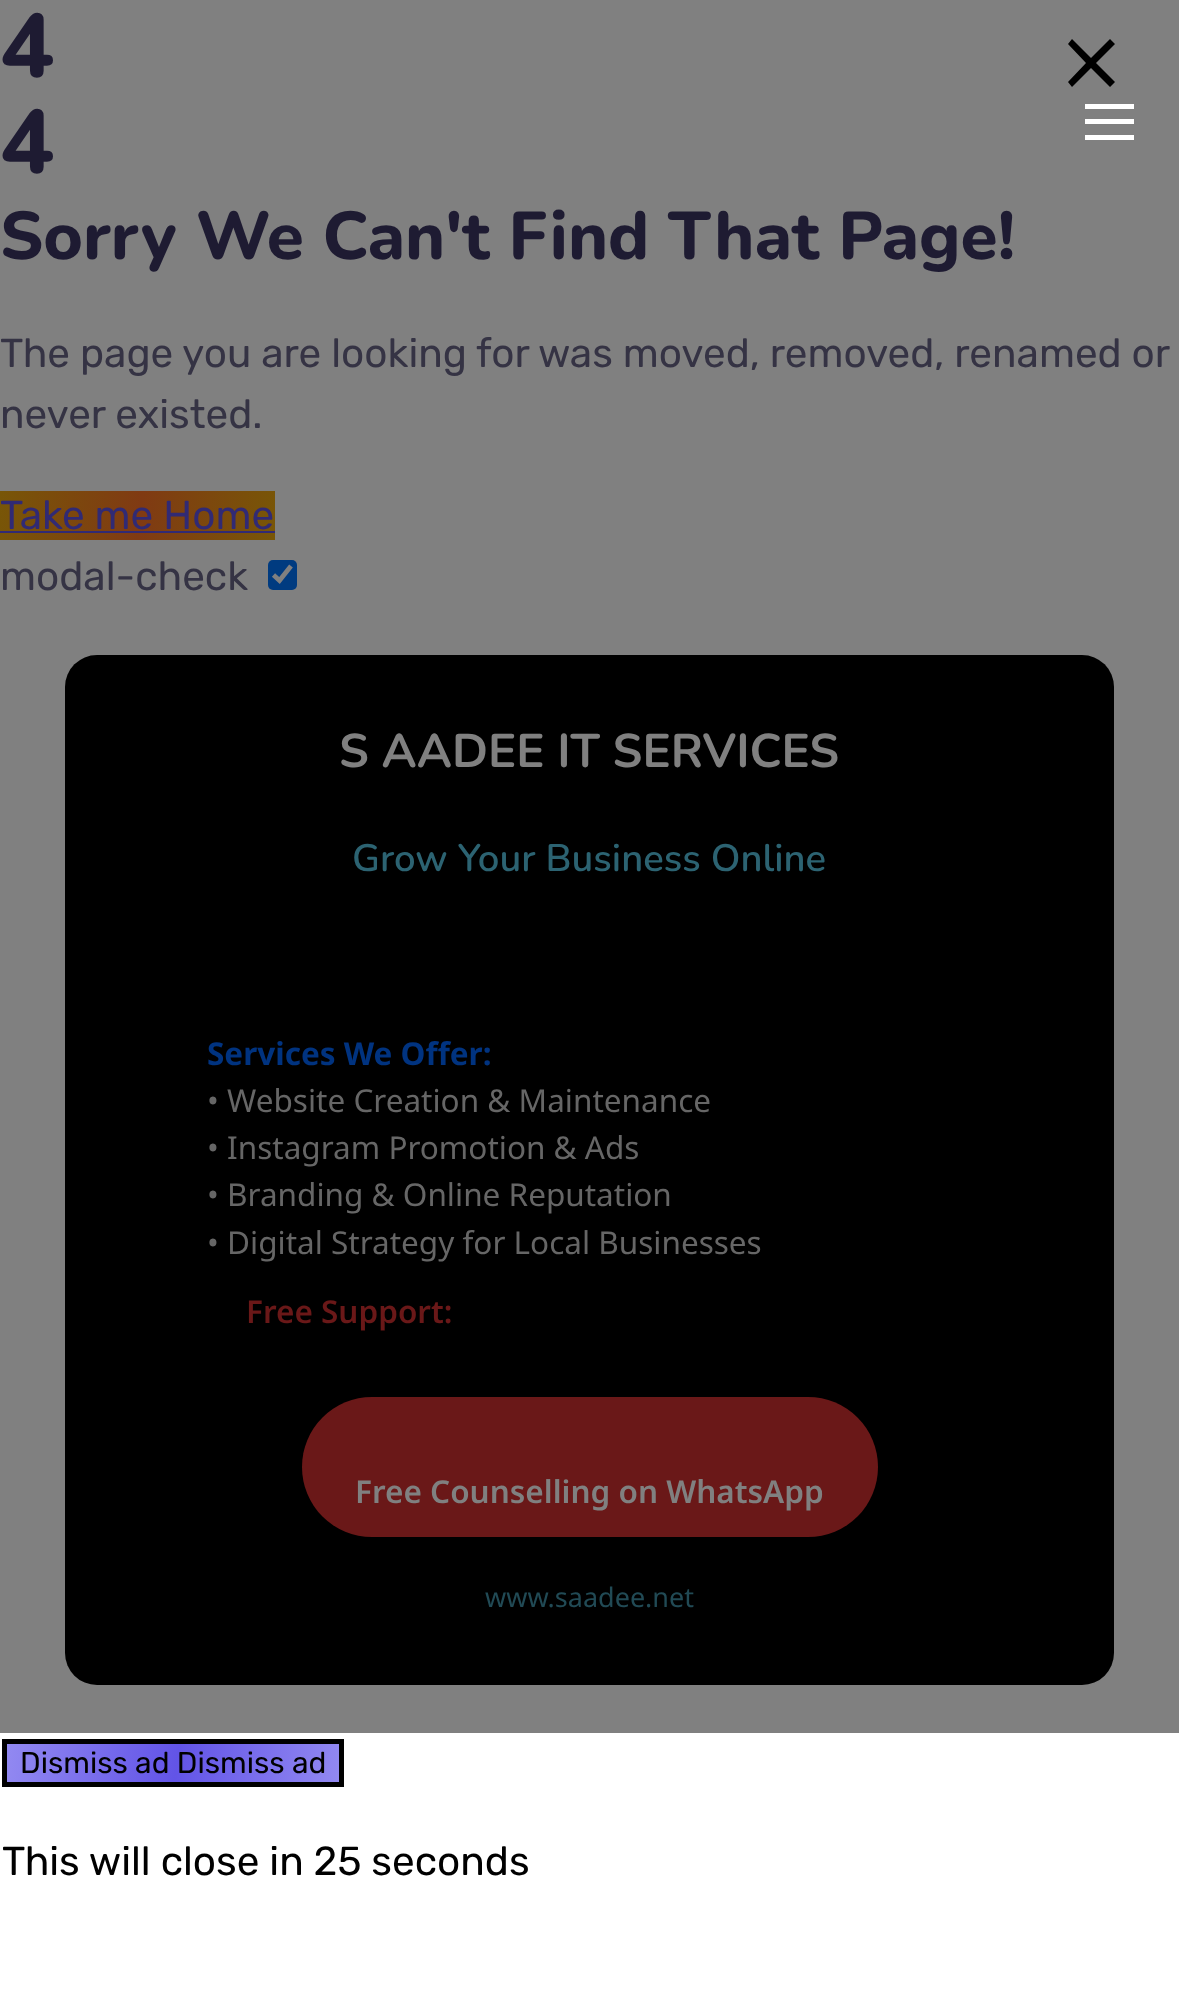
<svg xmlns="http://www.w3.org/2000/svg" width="1179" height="1999">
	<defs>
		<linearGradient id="g1" gradientUnits="userSpaceOnUse" x1="-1.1" y1="501" x2="276" y2="530"><stop offset="0" stop-color="#785607" /><stop offset="0.51" stop-color="#803A13" /><stop offset="1" stop-color="#785607" /></linearGradient>
		<linearGradient id="g2" gradientUnits="userSpaceOnUse" x1="6.6" y1="1745" x2="340" y2="1780"><stop offset="0" stop-color="#9289F1" /><stop offset="0.51" stop-color="#6254E7" /><stop offset="1" stop-color="#9289F1" /></linearGradient>
	</defs>
	<rect width="100%" height="100%" fill="#FFFFFF" />
	<rect x="0" y="0" width="1179" height="1733" fill="#808080" />
	<g font-family="Nunito" font-size="90" font-weight="800" fill="#1E1B32">
		<text x="0" y="77">4</text>
		<text x="0" y="173">4</text>
	</g>
	<text x="0" y="259" font-family="Nunito" font-size="67.5" font-weight="800" fill="#1E1B32">Sorry We Can't Find That Page!</text>
	<g font-family="Rubik" font-size="40.5" fill="#353344">
		<text x="0" y="367">The page you are looking for was moved, removed, renamed or</text>
		<text x="0" y="428">never existed.</text>
	</g>
	<rect x="0" y="491" width="275" height="49" fill="url(#g1)" />
	<text x="0" y="529" font-family="Rubik" font-size="40.5" fill="#312A74">Take me Home</text>
	<rect x="0" y="531" width="275" height="2" fill="#312A74" />
	<rect x="1085" y="119" width="49" height="5" fill="#FFFFFF" />
	<rect x="1085" y="104" width="49" height="5" fill="#FFFFFF" />
	<rect x="1085" y="135" width="49" height="5" fill="#FFFFFF" />
	<text x="0" y="590" font-family="Rubik" font-size="40.5" fill="#353344">modal-check</text>
	<rect x="268" y="560" width="29" height="30" rx="5" fill="#003B80" />
	<path d="M273.5 575L279.5 580.5L291 566" fill="none" stroke="#808080" stroke-width="4.7" />
	<path d="M1115 44L1110 39L1091 58L1072 39L1068 44L1086 63L1068 82L1072 87L1091 68L1110 87L1115 82L1096 63Z" fill="#000000" />
	<rect x="65" y="655" width="1049" height="1030" rx="32" fill="#000000" />
	<text x="339" y="767" font-family="Nunito" font-size="47.25" font-weight="700" fill="#808080">S AADEE IT SERVICES</text>
	<text x="352" y="871" font-family="Nunito" font-size="38.25" font-weight="600" fill="#2C6372">Grow Your Business Online</text>
	<text x="207" y="1065" font-family="Noto Sans" font-size="31.5" font-weight="700" fill="#003380">Services We Offer:</text>
	<g font-family="Noto Sans" font-size="31.5" fill="#666666">
		<text x="207" y="1112">• Website Creation &amp; Maintenance</text>
		<text x="207" y="1159">• Instagram Promotion &amp; Ads</text>
		<text x="207" y="1206">• Branding &amp; Online Reputation</text>
		<text x="207" y="1254">• Digital Strategy for Local Businesses</text>
	</g>
	<text x="246" y="1323" font-family="Noto Sans" font-size="31.5" font-weight="600" fill="#6A1818">Free Support:</text>
	<rect x="302" y="1397" width="576" height="140" rx="70" fill="#6A1818" />
	<text x="355" y="1503" font-family="Noto Sans" font-size="31.5" font-weight="600" fill="#808080">Free Counselling on WhatsApp</text>
	<text x="485" y="1607" font-family="Noto Sans" font-size="27" fill="#214A55">www.saadee.net</text>
	<rect x="7" y="1744" width="332" height="38" fill="url(#g2)" />
	<rect x="4.5" y="1741.5" width="337" height="43" fill="none" stroke="#000000" stroke-width="5" />
	<text x="20" y="1773" font-family="Rubik" font-size="30" fill="#000000">Dismiss ad Dismiss ad</text>
	<text x="2" y="1875" font-family="Rubik" font-size="40.5" fill="#000000">This will close in 25 seconds</text>
</svg>
